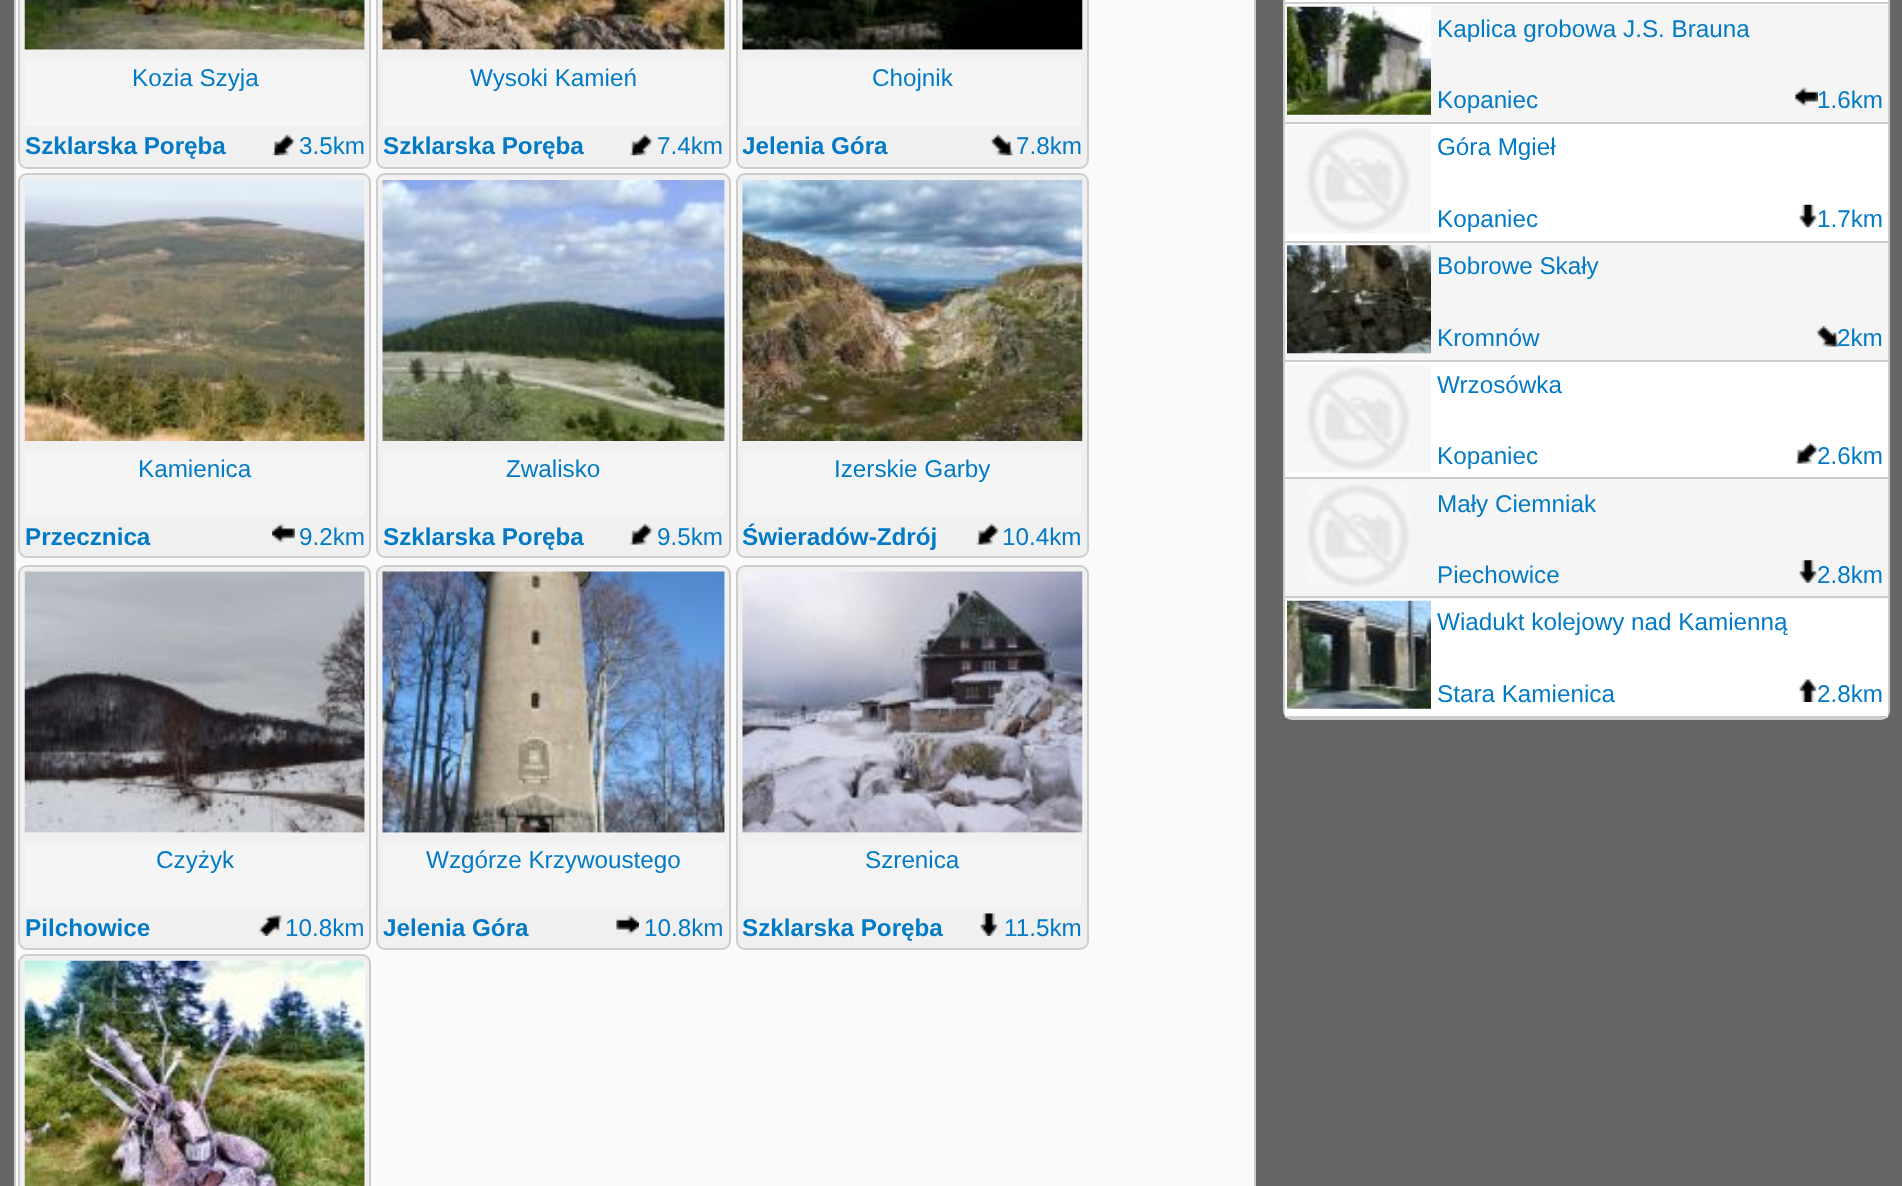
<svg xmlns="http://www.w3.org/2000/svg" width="1902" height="1186">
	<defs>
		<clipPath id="clip1"><rect x="743" y="126" width="211" height="36" /></clipPath>
	</defs>
	<rect width="100%" height="100%" fill="#666666" />
	<rect x="15" y="-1" width="1240" height="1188" fill="#FAFAFA" stroke="#CDCDCD" stroke-width="2" />
	<rect x="19" y="-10" width="351" height="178" rx="8" fill="#F0F0F0" stroke="#CDCDCD" stroke-width="2" />
	<rect x="25" y="0" width="340" height="50" fill="#FFFFFF" />
	<image x="24" y="0" width="341" height="50" href="assets/img1.png" />
	<rect x="25" y="61" width="340" height="65" fill="#F5F5F5" />
	<text x="132" y="86" font-family="Liberation Sans" font-size="24.25" fill="#027AC6">Kozia Szyja</text>
	<text x="25" y="154" font-family="Liberation Sans" font-size="24.25" font-weight="700" fill="#027AC6">Szklarska Poręba</text>
	<image x="272" y="134" width="23" height="22" href="assets/img2.png" />
	<text x="299" y="154" font-family="Liberation Sans" font-size="24.25" fill="#027AC6">3.5km</text>
	<rect x="377" y="-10" width="353" height="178" rx="8" fill="#F0F0F0" stroke="#CDCDCD" stroke-width="2" />
	<rect x="383" y="0" width="342" height="50" fill="#FFFFFF" />
	<image x="382" y="0" width="343" height="50" href="assets/img3.png" />
	<rect x="383" y="61" width="342" height="65" fill="#F5F5F5" />
	<text x="470" y="86" font-family="Liberation Sans" font-size="24.25" fill="#027AC6">Wysoki Kamień</text>
	<text x="383" y="154" font-family="Liberation Sans" font-size="24.25" font-weight="700" fill="#027AC6">Szklarska Poręba</text>
	<image x="630" y="134" width="23" height="22" href="assets/img4.png" />
	<text x="657" y="154" font-family="Liberation Sans" font-size="24.25" fill="#027AC6">7.4km</text>
	<rect x="737" y="-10" width="351" height="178" rx="8" fill="#F0F0F0" stroke="#CDCDCD" stroke-width="2" />
	<rect x="743" y="49" width="339" height="1" fill="#FFFFFF" />
	<image x="742" y="0" width="341" height="50" href="assets/img5.png" />
	<rect x="743" y="61" width="339" height="65" fill="#F5F5F5" />
	<text x="872" y="86" font-family="Liberation Sans" font-size="24.25" fill="#027AC6">Chojnik</text>
	<g clip-path="url(#clip1)">
		<text x="742" y="154" font-family="Liberation Sans" font-size="24.25" font-weight="700" fill="#027AC6">Jelenia Góra</text>
	</g>
	<image x="990" y="134" width="23" height="22" href="assets/img6.png" />
	<text x="1016" y="154" font-family="Liberation Sans" font-size="24.25" fill="#027AC6">7.8km</text>
	<rect x="19" y="174" width="351" height="383" rx="8" fill="#F0F0F0" stroke="#CDCDCD" stroke-width="2" />
	<rect x="364" y="180" width="1" height="261" fill="#FFFFFF" />
	<image x="24" y="180" width="341" height="261" href="assets/img7.png" />
	<rect x="25" y="452" width="340" height="63" fill="#F5F5F5" />
	<text x="138" y="477" font-family="Liberation Sans" font-size="24.25" fill="#027AC6">Kamienica</text>
	<text x="25" y="545" font-family="Liberation Sans" font-size="24.25" font-weight="700" fill="#027AC6">Przecznica</text>
	<image x="272" y="523" width="23" height="20" href="assets/img8.png" />
	<text x="299" y="545" font-family="Liberation Sans" font-size="24.25" fill="#027AC6">9.2km</text>
	<rect x="377" y="174" width="353" height="383" rx="8" fill="#F0F0F0" stroke="#CDCDCD" stroke-width="2" />
	<rect x="724" y="180" width="1" height="261" fill="#FFFFFF" />
	<image x="382" y="180" width="343" height="261" href="assets/img9.png" />
	<rect x="383" y="452" width="342" height="63" fill="#F5F5F5" />
	<text x="506" y="477" font-family="Liberation Sans" font-size="24.25" fill="#027AC6">Zwalisko</text>
	<text x="383" y="545" font-family="Liberation Sans" font-size="24.25" font-weight="700" fill="#027AC6">Szklarska Poręba</text>
	<image x="630" y="523" width="23" height="22" href="assets/img10.png" />
	<text x="657" y="545" font-family="Liberation Sans" font-size="24.25" fill="#027AC6">9.5km</text>
	<rect x="737" y="174" width="351" height="383" rx="8" fill="#F0F0F0" stroke="#CDCDCD" stroke-width="2" />
	<image x="742" y="180" width="341" height="261" href="assets/img11.png" />
	<rect x="743" y="452" width="339" height="63" fill="#F5F5F5" />
	<text x="834" y="477" font-family="Liberation Sans" font-size="24.25" fill="#027AC6">Izerskie Garby</text>
	<text x="742" y="545" font-family="Liberation Sans" font-size="24.25" font-weight="700" fill="#027AC6">Świeradów-Zdrój</text>
	<image x="976" y="523" width="23" height="22" href="assets/img12.png" />
	<text x="1002" y="545" font-family="Liberation Sans" font-size="24.25" fill="#027AC6">10.4km</text>
	<rect x="19" y="566" width="351" height="383" rx="8" fill="#F0F0F0" stroke="#CDCDCD" stroke-width="2" />
	<rect x="25" y="572" width="340" height="261" fill="#FFFFFF" />
	<image x="24" y="571" width="341" height="262" href="assets/img13.png" />
	<rect x="25" y="844" width="340" height="63" fill="#F5F5F5" />
	<text x="156" y="868" font-family="Liberation Sans" font-size="24.25" fill="#027AC6">Czyżyk</text>
	<text x="25" y="936" font-family="Liberation Sans" font-size="24.25" font-weight="700" fill="#027AC6">Pilchowice</text>
	<image x="258" y="915" width="24" height="21" href="assets/img14.png" />
	<text x="285" y="936" font-family="Liberation Sans" font-size="24.25" fill="#027AC6">10.8km</text>
	<rect x="377" y="566" width="353" height="383" rx="8" fill="#F0F0F0" stroke="#CDCDCD" stroke-width="2" />
	<rect x="383" y="572" width="342" height="261" fill="#FFFFFF" />
	<image x="382" y="571" width="343" height="262" href="assets/img15.png" />
	<rect x="383" y="844" width="342" height="63" fill="#F5F5F5" />
	<text x="426" y="868" font-family="Liberation Sans" font-size="24.25" fill="#027AC6">Wzgórze Krzywoustego</text>
	<text x="383" y="936" font-family="Liberation Sans" font-size="24.25" font-weight="700" fill="#027AC6">Jelenia Góra</text>
	<image x="616" y="915" width="23" height="20" href="assets/img16.png" />
	<text x="644" y="936" font-family="Liberation Sans" font-size="24.25" fill="#027AC6">10.8km</text>
	<rect x="737" y="566" width="351" height="383" rx="8" fill="#F0F0F0" stroke="#CDCDCD" stroke-width="2" />
	<rect x="743" y="832" width="339" height="1" fill="#FFFFFF" />
	<image x="742" y="571" width="341" height="262" href="assets/img17.png" />
	<rect x="743" y="844" width="339" height="63" fill="#F5F5F5" />
	<text x="865" y="868" font-family="Liberation Sans" font-size="24.25" fill="#027AC6">Szrenica</text>
	<text x="742" y="936" font-family="Liberation Sans" font-size="24.25" font-weight="700" fill="#027AC6">Szklarska Poręba</text>
	<image x="980" y="913" width="18" height="23" href="assets/img18.png" />
	<text x="1004" y="936" font-family="Liberation Sans" font-size="24.25" fill="#027AC6">11.5km</text>
	<rect x="19" y="955" width="351" height="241" rx="8" fill="#F0F0F0" stroke="#CDCDCD" stroke-width="2" />
	<rect x="364" y="961" width="1" height="225" fill="#FFFFFF" />
	<image x="24" y="960" width="341" height="226" href="assets/img19.png" />
	<rect x="1284" y="-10" width="605" height="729" rx="8" fill="none" stroke="#CDCDCD" stroke-width="2" />
	<rect x="1285" y="0" width="603" height="5" fill="#FFFFFF" />
	<rect x="1285" y="2" width="603" height="2" fill="#CCCCCC" />
	<rect x="1285" y="5" width="603" height="117" fill="#F5F5F5" />
	<rect x="1285" y="122" width="603" height="2" fill="#CCCCCC" />
	<image x="1287" y="6" width="144" height="109" href="assets/img20.png" />
	<g font-family="Liberation Sans" font-size="24.25" fill="#027AC6">
		<text x="1437" y="37">Kaplica grobowa J.S. Brauna</text>
		<text x="1437" y="108">Kopaniec</text>
	</g>
	<image x="1795" y="87" width="23" height="20" href="assets/img21.png" />
	<text x="1817" y="108" font-family="Liberation Sans" font-size="24.25" fill="#027AC6">1.6km</text>
	<rect x="1285" y="124" width="603" height="117" fill="#FFFFFF" />
	<rect x="1285" y="241" width="603" height="2" fill="#CCCCCC" />
	<image x="1287" y="126" width="144" height="108" href="assets/img22.png" />
	<g font-family="Liberation Sans" font-size="24.25" fill="#027AC6">
		<text x="1437" y="155">Góra Mgieł</text>
		<text x="1437" y="227">Kopaniec</text>
	</g>
	<image x="1799" y="204" width="18" height="24" href="assets/img23.png" />
	<text x="1817" y="227" font-family="Liberation Sans" font-size="24.25" fill="#027AC6">1.7km</text>
	<rect x="1285" y="243" width="603" height="117" fill="#F5F5F5" />
	<rect x="1285" y="360" width="603" height="2" fill="#CCCCCC" />
	<image x="1287" y="245" width="144" height="109" href="assets/img24.png" />
	<g font-family="Liberation Sans" font-size="24.25" fill="#027AC6">
		<text x="1437" y="274">Bobrowe Skały</text>
		<text x="1437" y="346">Kromnów</text>
	</g>
	<image x="1816" y="325" width="23" height="22" href="assets/img25.png" />
	<text x="1837" y="346" font-family="Liberation Sans" font-size="24.25" fill="#027AC6">2km</text>
	<rect x="1285" y="362" width="603" height="115" fill="#FFFFFF" />
	<rect x="1285" y="477" width="603" height="2" fill="#CCCCCC" />
	<image x="1287" y="364" width="144" height="109" href="assets/img26.png" />
	<g font-family="Liberation Sans" font-size="24.25" fill="#027AC6">
		<text x="1437" y="393">Wrzosówka</text>
		<text x="1437" y="464">Kopaniec</text>
	</g>
	<image x="1795" y="442" width="23" height="22" href="assets/img27.png" />
	<text x="1817" y="464" font-family="Liberation Sans" font-size="24.25" fill="#027AC6">2.6km</text>
	<rect x="1285" y="479" width="603" height="120" fill="#F5F5F5" />
	<rect x="1285" y="596" width="603" height="2" fill="#CCCCCC" />
	<image x="1307" y="484" width="103" height="103" href="assets/img28.png" />
	<g font-family="Liberation Sans" font-size="24.25" fill="#027AC6">
		<text x="1437" y="512">Mały Ciemniak</text>
		<text x="1437" y="583">Piechowice</text>
	</g>
	<image x="1799" y="560" width="18" height="23" href="assets/img29.png" />
	<text x="1817" y="583" font-family="Liberation Sans" font-size="24.25" fill="#027AC6">2.8km</text>
	<rect x="1285" y="599" width="603" height="117" fill="#FFFFFF" />
	<rect x="1285" y="716" width="603" height="2" fill="#CCCCCC" />
	<image x="1287" y="600" width="144" height="109" href="assets/img30.png" />
	<g font-family="Liberation Sans" font-size="24.25" fill="#027AC6">
		<text x="1437" y="630">Wiadukt kolejowy nad Kamienną</text>
		<text x="1437" y="702">Stara Kamienica</text>
	</g>
	<image x="1799" y="679" width="18" height="23" href="assets/img31.png" />
	<text x="1817" y="702" font-family="Liberation Sans" font-size="24.25" fill="#027AC6">2.8km</text>
</svg>
